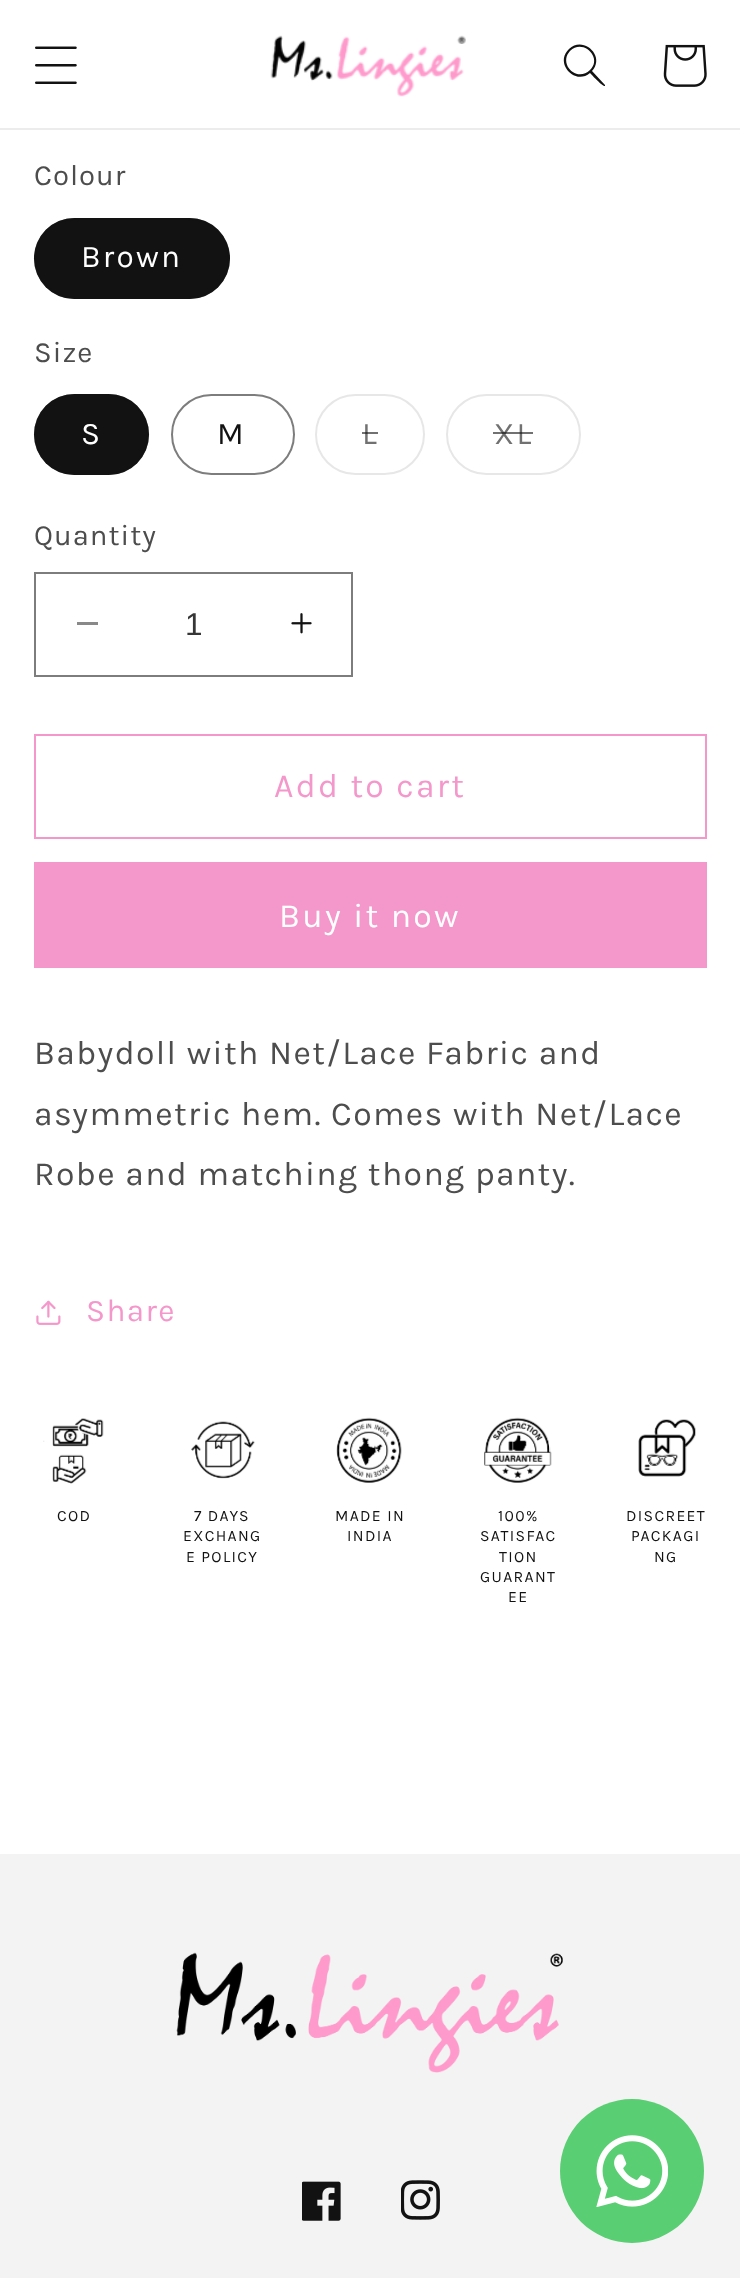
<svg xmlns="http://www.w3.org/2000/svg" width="740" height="2278">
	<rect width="100%" height="100%" fill="#FFFFFF" />
	<rect x="0" y="128" width="740" height="2" fill="#ECECEC" />
	<image x="35" y="46" width="42" height="38" href="assets/img1.png" />
	<image x="270" y="35" width="196" height="62" href="assets/img2.png" />
	<path d="M590 70C577 83 558 64 570 51C583 38 603 58 590 70ZM590 73C575 86 554 63 569 49C583 35 606 56 592 71L605 85V86C603 87 592 75 590 73Z" fill="#121212" fill-rule="evenodd" />
	<image x="663" y="44" width="44" height="43" href="assets/img3.png" />
	<text x="34" y="185" font-family="Karla" font-size="29.25" letter-spacing="1" fill="#4D4D4D">Colour</text>
	<rect x="34" y="218" width="196" height="81" rx="40.5" fill="#121212" />
	<rect x="35" y="219" width="194" height="79" rx="39.5" fill="none" stroke="#121212" stroke-opacity="0.55" stroke-width="2" />
	<text x="81" y="267" font-family="Karla" font-size="31.5" letter-spacing="2.25" fill="#FFFFFF">Brown</text>
	<text x="34" y="362" font-family="Karla" font-size="29.25" letter-spacing="1" fill="#4D4D4D">Size</text>
	<rect x="34" y="394" width="115" height="81" rx="40.5" fill="#121212" />
	<rect x="35" y="395" width="113" height="79" rx="39.5" fill="none" stroke="#121212" stroke-opacity="0.55" stroke-width="2" />
	<text x="81" y="444" font-family="Karla" font-size="31.5" letter-spacing="2.25" fill="#FFFFFF">S</text>
	<rect x="172" y="395" width="122" height="79" rx="39.5" fill="none" stroke="#7D7D7D" stroke-width="2" />
	<text x="217" y="444" font-family="Karla" font-size="31.5" letter-spacing="2.25" fill="#121212">M</text>
	<rect x="316" y="395" width="108" height="79" rx="39.5" fill="none" stroke="#E7E7E7" stroke-width="2" />
	<text x="362" y="444" font-family="Karla" font-size="31.5" letter-spacing="2.25" fill="#717171">L</text>
	<rect x="362" y="432" width="16" height="2" fill="#121212" fill-opacity="0.6" />
	<rect x="447" y="395" width="133" height="79" rx="39.5" fill="none" stroke="#E7E7E7" stroke-width="2" />
	<text x="494" y="444" font-family="Karla" font-size="31.5" letter-spacing="2.25" fill="#717171">XL</text>
	<rect x="493" y="432" width="40" height="2" fill="#121212" fill-opacity="0.6" />
	<text x="34" y="545" font-family="Karla" font-size="29.25" letter-spacing="1" fill="#4D4D4D">Quantity</text>
	<rect x="77" y="622" width="21" height="3" fill="#898989" />
	<image x="291" y="613" width="21" height="21" href="assets/img4.png" />
	<rect x="35" y="573" width="317" height="103" fill="none" stroke="#7D7D7D" stroke-width="2" />
	<text x="185" y="635" font-family="Liberation Sans" font-size="31.5" fill="#363636">1</text>
	<rect x="35" y="735" width="671" height="103" fill="none" stroke="#F498CC" stroke-width="2" />
	<text x="274" y="797" font-family="Karla" font-size="33.75" letter-spacing="2.25" fill="#F498CC">Add to cart</text>
	<rect x="34" y="862" width="673" height="106" fill="#F498CC" />
	<text x="279" y="927" font-family="Karla" font-size="33.75" letter-spacing="2.25" fill="#FFFFFF">Buy it now</text>
	<g font-family="Karla" font-size="33.75" letter-spacing="1.35" fill="#4D4D4D">
		<text x="34" y="1064">Babydoll with Net/Lace Fabric and</text>
		<text x="34" y="1125">asymmetric hem. Comes with Net/Lace</text>
		<text x="34" y="1185">Robe and matching thong panty.</text>
	</g>
	<image x="36" y="1300" width="25" height="25" href="assets/img5.png" />
	<text x="86" y="1321" font-family="Karla" font-size="31.5" letter-spacing="1.35" fill="#F498CC">Share</text>
	<image x="43" y="1418" width="61" height="66" href="assets/img6.png" />
	<text x="57" y="1521" font-family="Karla" font-size="15.75" letter-spacing="1.35" fill="#121212">COD</text>
	<image x="191" y="1421" width="64" height="58" href="assets/img7.png" />
	<g font-family="Karla" font-size="15.75" letter-spacing="1.35" fill="#121212">
		<text x="194" y="1521">7 DAYS</text>
		<text x="183" y="1541">EXCHANG</text>
		<text x="186" y="1562">E POLICY</text>
	</g>
	<image x="336" y="1417" width="66" height="66" href="assets/img8.png" />
	<g font-family="Karla" font-size="15.75" letter-spacing="1.35" fill="#121212">
		<text x="335" y="1521">MADE IN</text>
		<text x="347" y="1541">INDIA</text>
	</g>
	<image x="484" y="1417" width="68" height="66" href="assets/img9.png" />
	<g font-family="Karla" font-size="15.75" letter-spacing="1.35" fill="#121212">
		<text x="498" y="1521">100%</text>
		<text x="480" y="1541">SATISFAC</text>
		<text x="499" y="1562">TION</text>
		<text x="480" y="1582">GUARANT</text>
		<text x="508" y="1602">EE</text>
	</g>
	<image x="638" y="1419" width="58" height="58" href="assets/img10.png" />
	<g font-family="Karla" font-size="15.75" letter-spacing="1.35" fill="#121212">
		<text x="626" y="1521">DISCREET</text>
		<text x="631" y="1541">PACKAGI</text>
		<text x="654" y="1562">NG</text>
	</g>
	<rect x="0" y="1854" width="740" height="424" fill="#F3F3F3" />
	<image x="176" y="1952" width="387" height="121" href="assets/img11.png" />
	<image x="302" y="2181" width="39" height="40" href="assets/img12.png" />
	<image x="401" y="2180" width="39" height="40" href="assets/img13.png" />
	<circle cx="632" cy="2171" r="72" fill="#59CE72" />
	<image x="596" y="2135" width="72" height="72" href="assets/img14.png" />
</svg>
